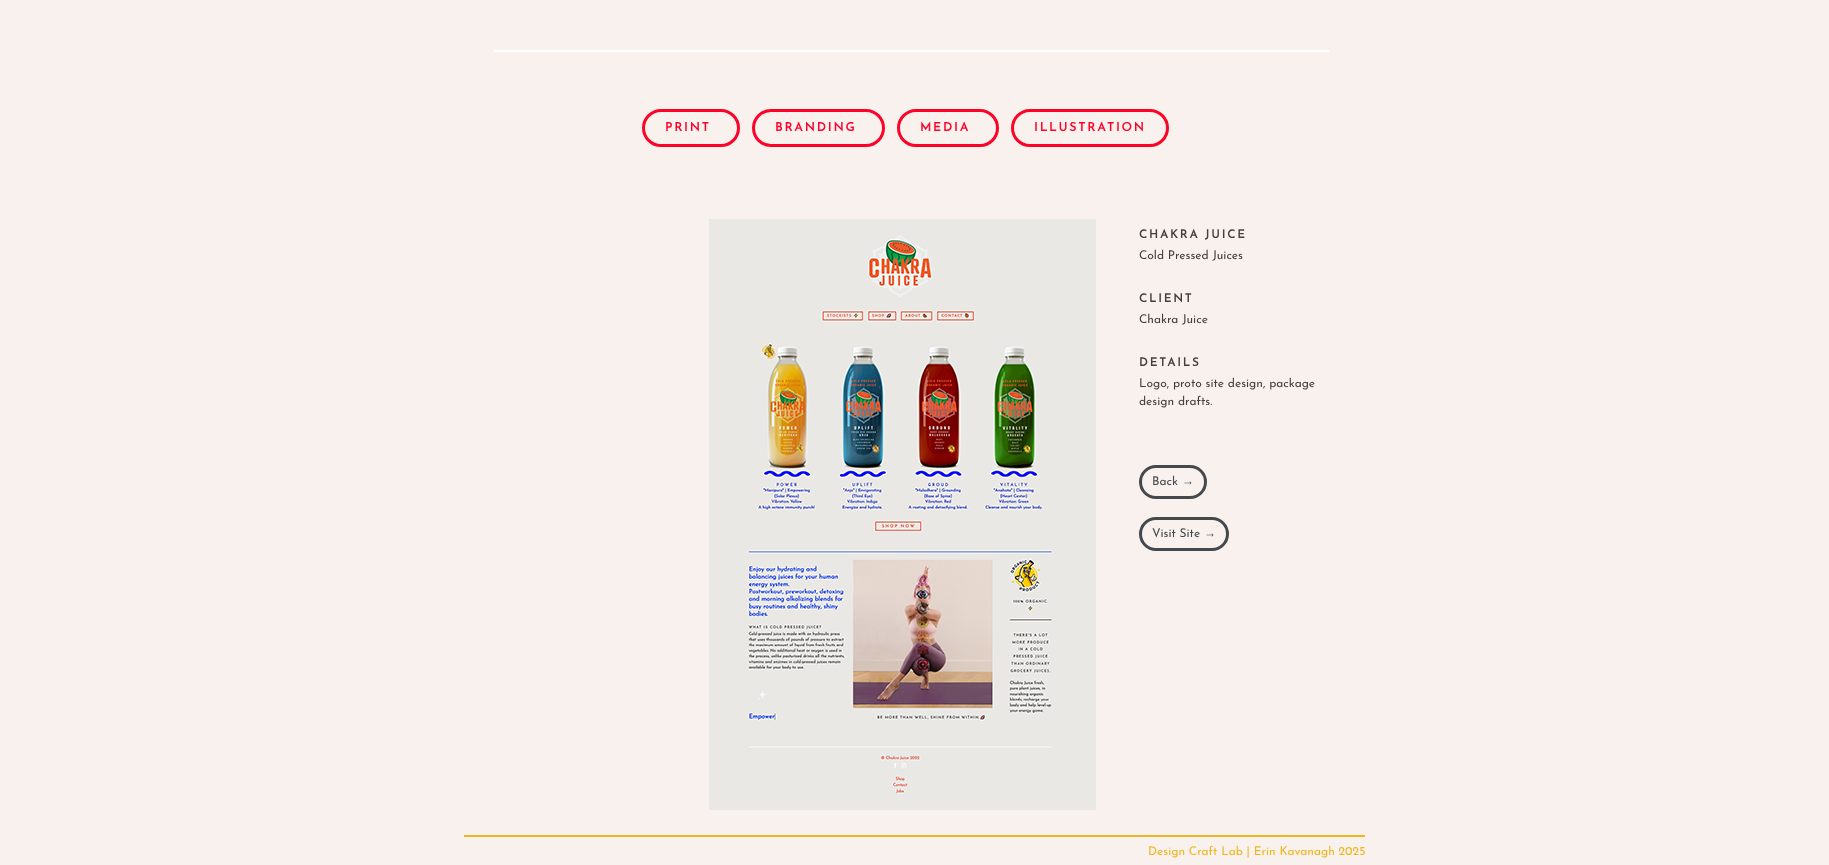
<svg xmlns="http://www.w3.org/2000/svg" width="1829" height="865">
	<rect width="100%" height="100%" fill="#F8F1ED" />
	<rect x="494" y="50" width="835" height="2" fill="#FFFFFF" />
	<rect x="643.5" y="110.5" width="95" height="35" rx="17.5" fill="none" stroke="#FC0328" stroke-width="3" />
	<text x="665" y="131" font-family="Josefin Sans" font-size="12" font-weight="700" letter-spacing="2" fill="#FC0328">PRINT</text>
	<rect x="753.5" y="110.5" width="130" height="35" rx="17.5" fill="none" stroke="#FC0328" stroke-width="3" />
	<text x="775" y="131" font-family="Josefin Sans" font-size="12" font-weight="700" letter-spacing="2" fill="#FC0328">BRANDING</text>
	<rect x="898.5" y="110.5" width="99" height="35" rx="17.5" fill="none" stroke="#FC0328" stroke-width="3" />
	<text x="920" y="131" font-family="Josefin Sans" font-size="12" font-weight="700" letter-spacing="2" fill="#FC0328">MEDIA</text>
	<rect x="1012.5" y="110.5" width="155" height="35" rx="17.5" fill="none" stroke="#FC0328" stroke-width="3" />
	<text x="1034" y="131" font-family="Josefin Sans" font-size="12" font-weight="700" letter-spacing="2" fill="#FC0328">ILLUSTRATION</text>
	<image x="709" y="219" width="387" height="591" href="assets/img1.png" />
	<text x="1139" y="238" font-family="Josefin Sans" font-size="11.5" font-weight="700" letter-spacing="2" fill="#443F3E">CHAKRA JUICE</text>
	<text x="1139" y="259" font-family="Josefin Sans" font-size="12" font-weight="100" fill="#443F3E">Cold Pressed Juices</text>
	<text x="1139" y="302" font-family="Josefin Sans" font-size="11.5" font-weight="700" letter-spacing="2" fill="#443F3E">CLIENT</text>
	<text x="1139" y="323" font-family="Josefin Sans" font-size="12" font-weight="100" fill="#443F3E">Chakra Juice</text>
	<text x="1139" y="366" font-family="Josefin Sans" font-size="11.5" font-weight="700" letter-spacing="2" fill="#443F3E">DETAILS</text>
	<g font-family="Josefin Sans" font-size="12" font-weight="100" fill="#443F3E">
		<text x="1139" y="387">Logo, proto site design, package</text>
		<text x="1139" y="405">design drafts.</text>
	</g>
	<rect x="1140.5" y="466.5" width="65" height="31" rx="15.5" fill="none" stroke="#45484C" stroke-width="3" />
	<text x="1152" y="485" font-family="Josefin Sans" font-size="12" font-weight="100" fill="#45484C">Back</text>
	<text x="1182" y="485" font-family="Liberation Sans" font-size="12" fill="#45484C">→</text>
	<rect x="1140.5" y="518.5" width="87" height="31" rx="15.5" fill="none" stroke="#45484C" stroke-width="3" />
	<text x="1152" y="537" font-family="Josefin Sans" font-size="12" font-weight="100" fill="#45484C">Visit Site</text>
	<text x="1204" y="537" font-family="Liberation Sans" font-size="12" fill="#45484C">→</text>
	<rect x="464" y="835" width="901" height="2" fill="#ECB71E" />
	<text x="1148" y="855" font-family="Josefin Sans" font-size="12" font-weight="100" fill="#ECB71E">Design Craft Lab | Erin Kavanagh 2025</text>
</svg>
